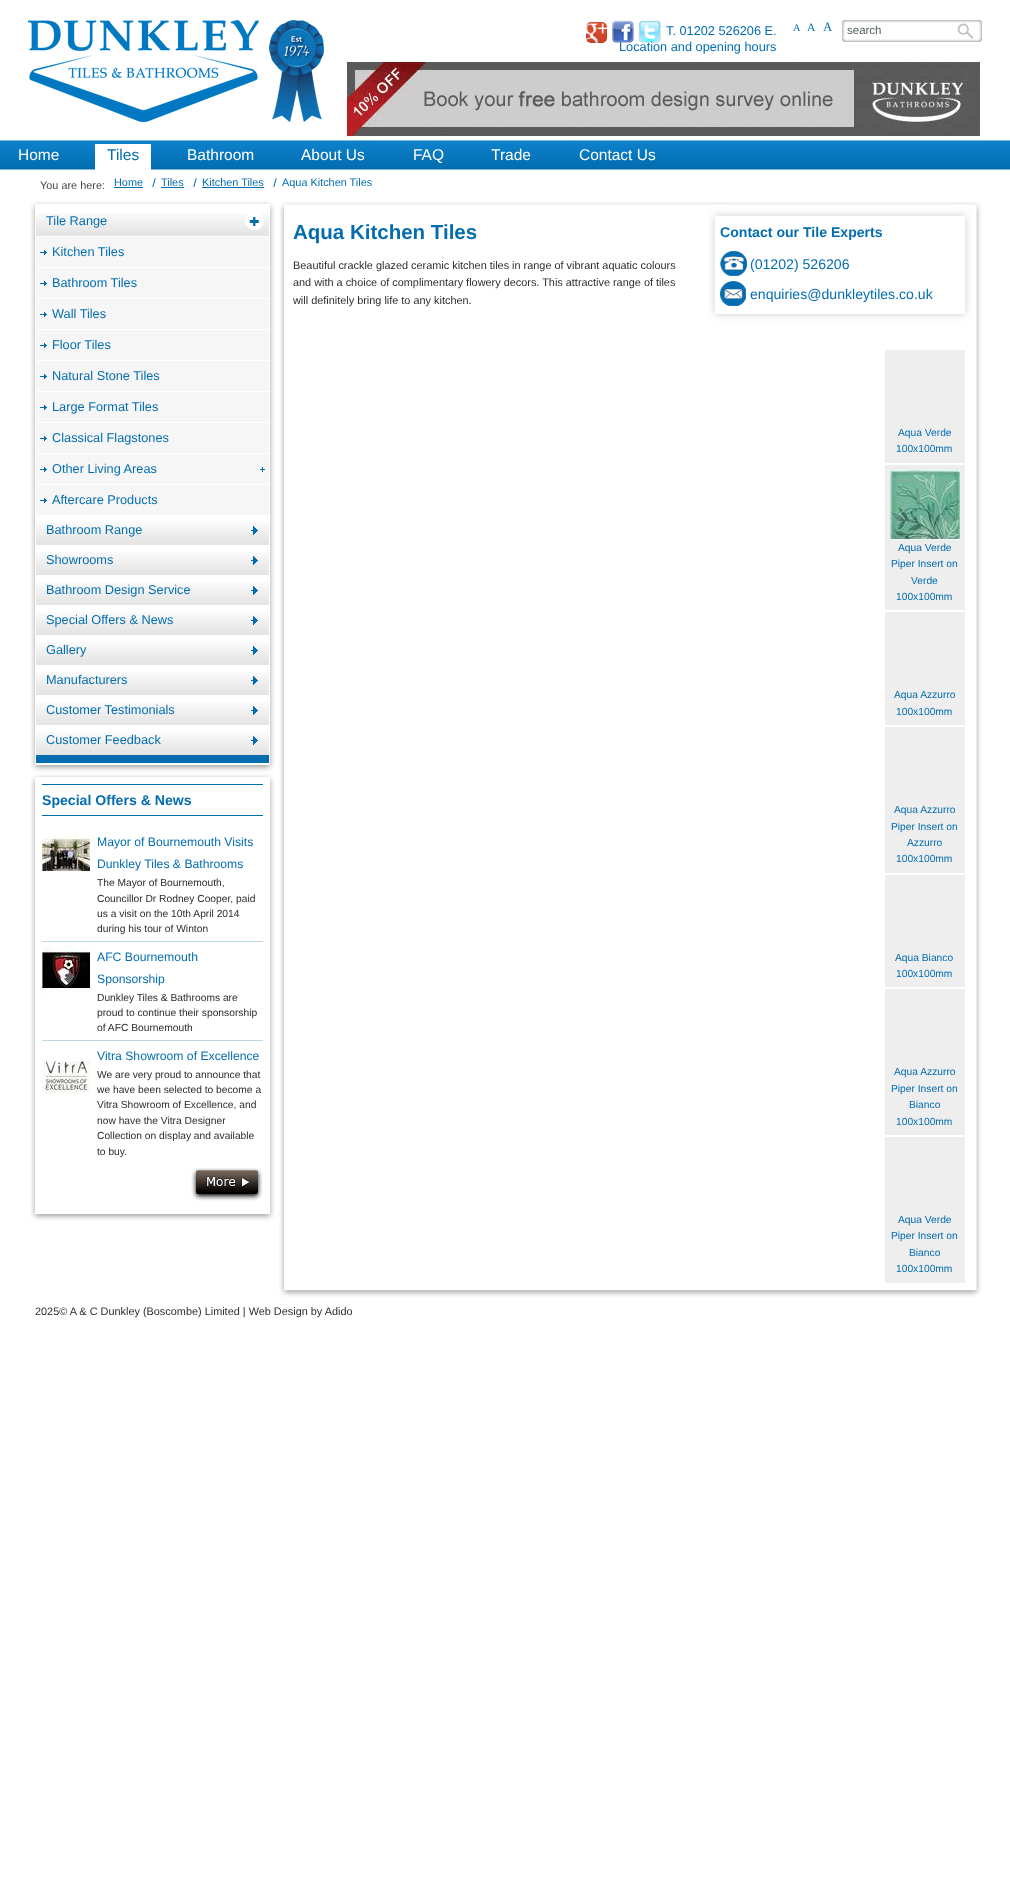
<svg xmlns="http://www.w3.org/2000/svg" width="1010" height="1895">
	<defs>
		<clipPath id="clip1"><path d="M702 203H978V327H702ZM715 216H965V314H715Z" clip-rule="evenodd" /></clipPath>
	</defs>
	<rect width="100%" height="100%" fill="#FFFFFF" />
	<image x="28" y="20" width="231" height="102" href="assets/img1.png" />
	<image x="269" y="20" width="55" height="102" href="assets/img2.png" />
	<image x="586" y="22" width="21" height="21" href="assets/img3.png" />
	<image x="612" y="20" width="22" height="23" href="assets/img4.png" />
	<image x="638" y="20" width="24" height="24" href="assets/img5.png" />
	<g font-family="Liberation Sans" font-size="12.75" fill="#036DB0">
		<text x="666" y="35">T. 01202 526206 E.</text>
		<text x="619" y="51">Location and opening hours</text>
	</g>
	<text x="793" y="31" font-family="Liberation Serif" font-size="10.25" fill="#036DB0">A</text>
	<text x="807" y="31" font-family="Liberation Serif" font-size="11.5" fill="#036DB0">A</text>
	<text x="823" y="31" font-family="Liberation Serif" font-size="12.75" fill="#036DB0">A</text>
	<image x="842" y="20" width="140" height="22" href="assets/img6.png" />
	<text x="847" y="34" font-family="Liberation Sans" font-size="11.5" fill="#505B5E">search</text>
	<image x="957" y="23" width="17" height="16" href="assets/img7.png" />
	<image x="345" y="60" width="637" height="78" href="assets/img8.png" />
	<image x="0" y="140" width="1010" height="30" href="assets/img9.png" />
	<text x="18" y="160" font-family="Liberation Sans" font-size="15.5" fill="#FFFFFF">Home</text>
	<rect x="95" y="144" width="56" height="26" fill="#FFFFFF" />
	<text x="107" y="160" font-family="Liberation Sans" font-size="15.5" fill="#036DB0">Tiles</text>
	<g font-family="Liberation Sans" font-size="15.5" fill="#FFFFFF">
		<text x="187" y="160">Bathroom</text>
		<text x="301" y="160">About Us</text>
		<text x="413" y="160">FAQ</text>
		<text x="491" y="160">Trade</text>
		<text x="579" y="160">Contact Us</text>
	</g>
	<text x="40" y="189" font-family="Liberation Sans" font-size="10.9" fill="#494949">You are here:</text>
	<text x="114" y="186" font-family="Liberation Sans" font-size="10.9" fill="#036DB0">Home</text>
	<rect x="114" y="187" width="29" height="1" fill="#036DB0" />
	<image x="152" y="178" width="4" height="9" href="assets/img10.png" />
	<text x="161" y="186" font-family="Liberation Sans" font-size="10.9" fill="#036DB0">Tiles</text>
	<rect x="161" y="187" width="23" height="1" fill="#036DB0" />
	<image x="193" y="178" width="4" height="9" href="assets/img10.png" />
	<text x="202" y="186" font-family="Liberation Sans" font-size="10.9" fill="#036DB0">Kitchen Tiles</text>
	<rect x="202" y="187" width="62" height="1" fill="#036DB0" />
	<image x="273" y="178" width="4" height="9" href="assets/img10.png" />
	<text x="282" y="186" font-family="Liberation Sans" font-size="10.9" fill="#036DB0">Aqua Kitchen Tiles</text>
	<image x="30" y="210" width="245" height="553" href="assets/img11.png" />
	<image x="30" y="200" width="245" height="10" href="assets/img12.png" />
	<image x="30" y="763" width="245" height="10" href="assets/img13.png" />
	<rect x="36" y="755" width="233" height="8" fill="#036DB0" />
	<image x="36" y="213" width="233" height="23" href="assets/img14.png" />
	<image x="245" y="213" width="19" height="17" href="assets/img15.png" />
	<text x="46" y="225" font-family="Liberation Sans" font-size="12.75" fill="#036DB0">Tile Range</text>
	<rect x="36" y="237" width="233" height="30" fill="#F6F6F6" />
	<image x="40" y="250" width="7" height="5" href="assets/img16.png" />
	<text x="52" y="256" font-family="Liberation Sans" font-size="12.75" fill="#036DB0">Kitchen Tiles</text>
	<rect x="36" y="268" width="233" height="30" fill="#F6F6F6" />
	<image x="40" y="281" width="7" height="5" href="assets/img16.png" />
	<text x="52" y="287" font-family="Liberation Sans" font-size="12.75" fill="#036DB0">Bathroom Tiles</text>
	<rect x="36" y="299" width="233" height="30" fill="#F6F6F6" />
	<image x="40" y="312" width="7" height="5" href="assets/img16.png" />
	<text x="52" y="318" font-family="Liberation Sans" font-size="12.75" fill="#036DB0">Wall Tiles</text>
	<rect x="36" y="330" width="233" height="30" fill="#F6F6F6" />
	<image x="40" y="343" width="7" height="5" href="assets/img16.png" />
	<text x="52" y="349" font-family="Liberation Sans" font-size="12.75" fill="#036DB0">Floor Tiles</text>
	<rect x="36" y="361" width="233" height="30" fill="#F6F6F6" />
	<image x="40" y="374" width="7" height="5" href="assets/img16.png" />
	<text x="52" y="380" font-family="Liberation Sans" font-size="12.75" fill="#036DB0">Natural Stone Tiles</text>
	<rect x="36" y="392" width="233" height="30" fill="#F6F6F6" />
	<image x="40" y="405" width="7" height="5" href="assets/img16.png" />
	<text x="52" y="411" font-family="Liberation Sans" font-size="12.75" fill="#036DB0">Large Format Tiles</text>
	<rect x="36" y="423" width="233" height="30" fill="#F6F6F6" />
	<image x="40" y="436" width="7" height="5" href="assets/img16.png" />
	<text x="52" y="442" font-family="Liberation Sans" font-size="12.75" fill="#036DB0">Classical Flagstones</text>
	<rect x="36" y="454" width="233" height="30" fill="#F6F6F6" />
	<image x="40" y="467" width="7" height="5" href="assets/img16.png" />
	<image x="260" y="467" width="5" height="5" href="assets/img17.png" />
	<text x="52" y="473" font-family="Liberation Sans" font-size="12.75" fill="#036DB0">Other Living Areas</text>
	<rect x="36" y="485" width="233" height="30" fill="#F6F6F6" />
	<image x="40" y="498" width="7" height="5" href="assets/img16.png" />
	<text x="52" y="504" font-family="Liberation Sans" font-size="12.75" fill="#036DB0">Aftercare Products</text>
	<image x="36" y="522" width="233" height="23" href="assets/img14.png" />
	<image x="251" y="526" width="7" height="9" href="assets/img18.png" />
	<text x="46" y="534" font-family="Liberation Sans" font-size="12.75" fill="#036DB0">Bathroom Range</text>
	<image x="36" y="552" width="233" height="23" href="assets/img14.png" />
	<image x="251" y="556" width="7" height="9" href="assets/img18.png" />
	<text x="46" y="564" font-family="Liberation Sans" font-size="12.75" fill="#036DB0">Showrooms</text>
	<image x="36" y="582" width="233" height="23" href="assets/img14.png" />
	<image x="251" y="586" width="7" height="9" href="assets/img18.png" />
	<text x="46" y="594" font-family="Liberation Sans" font-size="12.75" fill="#036DB0">Bathroom Design Service</text>
	<image x="36" y="612" width="233" height="23" href="assets/img14.png" />
	<image x="251" y="616" width="7" height="9" href="assets/img18.png" />
	<text x="46" y="624" font-family="Liberation Sans" font-size="12.75" fill="#036DB0">Special Offers &amp; News</text>
	<image x="36" y="642" width="233" height="23" href="assets/img14.png" />
	<image x="251" y="646" width="7" height="9" href="assets/img18.png" />
	<text x="46" y="654" font-family="Liberation Sans" font-size="12.75" fill="#036DB0">Gallery</text>
	<image x="36" y="672" width="233" height="23" href="assets/img14.png" />
	<image x="251" y="676" width="7" height="9" href="assets/img18.png" />
	<text x="46" y="684" font-family="Liberation Sans" font-size="12.75" fill="#036DB0">Manufacturers</text>
	<image x="36" y="702" width="233" height="23" href="assets/img14.png" />
	<image x="251" y="706" width="7" height="9" href="assets/img18.png" />
	<text x="46" y="714" font-family="Liberation Sans" font-size="12.75" fill="#036DB0">Customer Testimonials</text>
	<image x="36" y="732" width="233" height="23" href="assets/img14.png" />
	<image x="251" y="736" width="7" height="9" href="assets/img18.png" />
	<text x="46" y="744" font-family="Liberation Sans" font-size="12.75" fill="#036DB0">Customer Feedback</text>
	<image x="30" y="783" width="245" height="429" href="assets/img19.png" />
	<image x="30" y="773" width="245" height="10" href="assets/img12.png" />
	<image x="30" y="1212" width="245" height="10" href="assets/img13.png" />
	<rect x="42" y="784" width="221" height="1" fill="#036DB0" />
	<rect x="42" y="815" width="221" height="1" fill="#036DB0" />
	<text x="42" y="805" font-family="Liberation Sans" font-size="14.1" font-weight="700" fill="#036DB0">Special Offers &amp; News</text>
	<rect x="42" y="941" width="221" height="1" fill="#BBD7EA" />
	<image x="42" y="831" width="48" height="40" href="assets/img20.png" />
	<g font-family="Liberation Sans" font-size="12.2" fill="#036DB0">
		<text x="97" y="846">Mayor of Bournemouth Visits</text>
		<text x="97" y="868">Dunkley Tiles &amp; Bathrooms</text>
	</g>
	<g font-family="Liberation Sans" font-size="10.25" fill="#2D2D2D">
		<text x="97" y="886">The Mayor of Bournemouth,</text>
		<text x="97" y="902">Councillor Dr Rodney Cooper, paid</text>
		<text x="97" y="917">us a visit on the 10th April 2014</text>
		<text x="97" y="932">during his tour of Winton</text>
	</g>
	<rect x="42" y="1040" width="221" height="1" fill="#BBD7EA" />
	<image x="42" y="946" width="48" height="48" href="assets/img21.png" />
	<g font-family="Liberation Sans" font-size="12.2" fill="#036DB0">
		<text x="97" y="961">AFC Bournemouth</text>
		<text x="97" y="983">Sponsorship</text>
	</g>
	<g font-family="Liberation Sans" font-size="10.25" fill="#2D2D2D">
		<text x="97" y="1001">Dunkley Tiles &amp; Bathrooms are</text>
		<text x="97" y="1016">proud to continue their sponsorship</text>
		<text x="97" y="1031">of AFC Bournemouth</text>
	</g>
	<image x="42" y="1061" width="48" height="32" href="assets/img22.png" />
	<text x="97" y="1060" font-family="Liberation Sans" font-size="12.2" fill="#036DB0">Vitra Showroom of Excellence</text>
	<g font-family="Liberation Sans" font-size="10.25" fill="#2D2D2D">
		<text x="97" y="1078">We are very proud to announce that</text>
		<text x="97" y="1093">we have been selected to become a</text>
		<text x="97" y="1108">Vitra Showroom of Excellence, and</text>
		<text x="97" y="1124">now have the Vitra Designer</text>
		<text x="97" y="1139">Collection on display and available</text>
		<text x="97" y="1155">to buy.</text>
	</g>
	<image x="191" y="1168" width="72" height="33" href="assets/img23.png" />
	<image x="279" y="210" width="702" height="1078" href="assets/img24.png" />
	<image x="279" y="200" width="702" height="10" href="assets/img25.png" />
	<image x="279" y="1288" width="702" height="10" href="assets/img26.png" />
	<text x="293" y="239" font-family="Liberation Sans" font-size="20.5" font-weight="700" fill="#036DB0">Aqua Kitchen Tiles</text>
	<g clip-path="url(#clip1)">
		<rect x="715" y="216" width="250" height="98" fill="#CCCCCC" filter="blur(4px)" />
	</g>
	<text x="720" y="237" font-family="Liberation Sans" font-size="14.1" font-weight="700" fill="#036DB0">Contact our Tile Experts</text>
	<image x="720" y="251" width="27" height="25" href="assets/img27.png" />
	<text x="750" y="269" font-family="Liberation Sans" font-size="14.1" fill="#036DB0">(01202) 526206</text>
	<image x="720" y="281" width="26" height="25" href="assets/img28.png" />
	<text x="750" y="299" font-family="Liberation Sans" font-size="14.1" fill="#036DB0">enquiries@dunkleytiles.co.uk</text>
	<g font-family="Liberation Sans" font-size="10.9" fill="#2D2D2D">
		<text x="293" y="269">Beautiful crackle glazed ceramic kitchen tiles in range of vibrant aquatic colours</text>
		<text x="293" y="286">and with a choice of complimentary flowery decors. This attractive range of tiles</text>
		<text x="293" y="304">will definitely bring life to any kitchen.</text>
	</g>
	<rect x="885" y="350" width="80" height="113" fill="#EEEEEE" />
	<g font-family="Liberation Sans" font-size="10.25" fill="#036DB0">
		<text x="898" y="436">Aqua Verde</text>
		<text x="896" y="452">100x100mm</text>
	</g>
	<rect x="885" y="465" width="80" height="145" fill="#EEEEEE" />
	<image x="890" y="470" width="70" height="70" href="assets/img29.png" />
	<g font-family="Liberation Sans" font-size="10.25" fill="#036DB0">
		<text x="898" y="551">Aqua Verde</text>
		<text x="891" y="567">Piper Insert on</text>
		<text x="911" y="584">Verde</text>
		<text x="896" y="600">100x100mm</text>
	</g>
	<rect x="885" y="612" width="80" height="113" fill="#EEEEEE" />
	<g font-family="Liberation Sans" font-size="10.25" fill="#036DB0">
		<text x="894" y="698">Aqua Azzurro</text>
		<text x="896" y="715">100x100mm</text>
	</g>
	<rect x="885" y="727" width="80" height="146" fill="#EEEEEE" />
	<g font-family="Liberation Sans" font-size="10.25" fill="#036DB0">
		<text x="894" y="813">Aqua Azzurro</text>
		<text x="891" y="830">Piper Insert on</text>
		<text x="907" y="846">Azzurro</text>
		<text x="896" y="862">100x100mm</text>
	</g>
	<rect x="885" y="875" width="80" height="112" fill="#EEEEEE" />
	<g font-family="Liberation Sans" font-size="10.25" fill="#036DB0">
		<text x="895" y="961">Aqua Bianco</text>
		<text x="896" y="977">100x100mm</text>
	</g>
	<rect x="885" y="989" width="80" height="146" fill="#EEEEEE" />
	<g font-family="Liberation Sans" font-size="10.25" fill="#036DB0">
		<text x="894" y="1075">Aqua Azzurro</text>
		<text x="891" y="1092">Piper Insert on</text>
		<text x="909" y="1108">Bianco</text>
		<text x="896" y="1125">100x100mm</text>
	</g>
	<rect x="885" y="1137" width="80" height="146" fill="#EEEEEE" />
	<g font-family="Liberation Sans" font-size="10.25" fill="#036DB0">
		<text x="898" y="1223">Aqua Verde</text>
		<text x="891" y="1239">Piper Insert on</text>
		<text x="909" y="1256">Bianco</text>
		<text x="896" y="1272">100x100mm</text>
	</g>
	<text x="35" y="1315" font-family="Liberation Sans" font-size="10.9" fill="#2D2D2D">2025© A &amp; C Dunkley (Boscombe) Limited | Web Design by Adido</text>
</svg>
